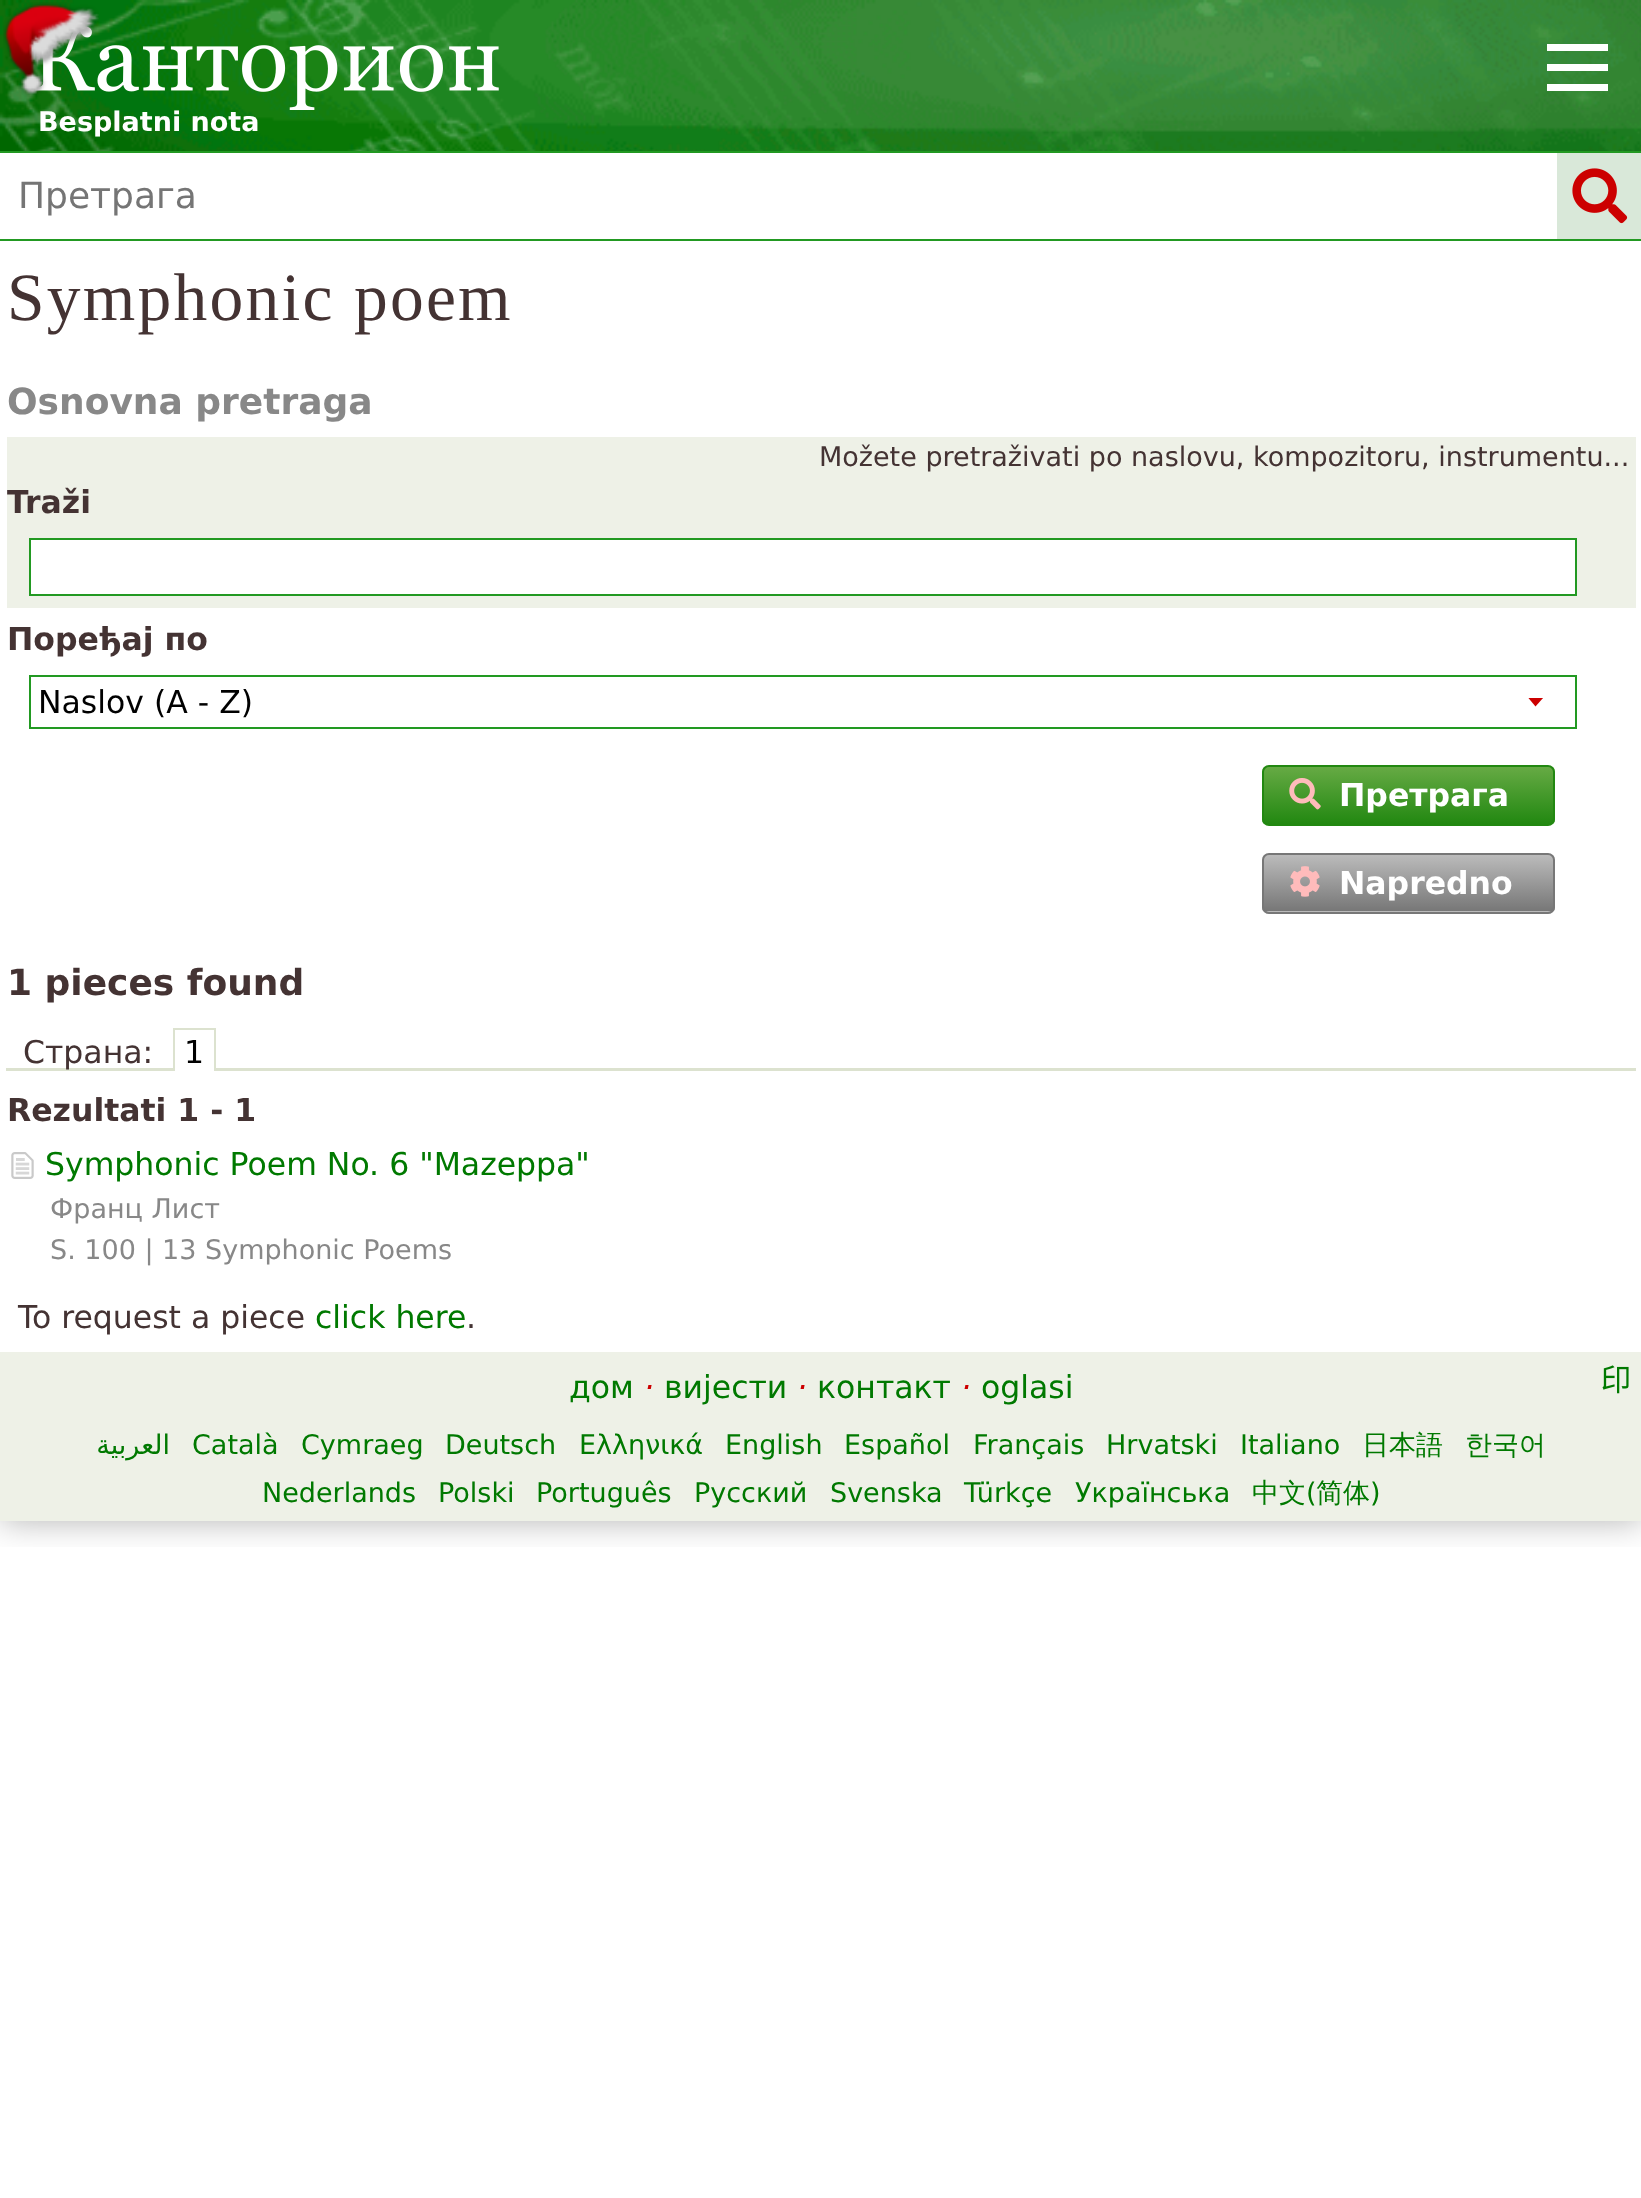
<svg xmlns="http://www.w3.org/2000/svg" width="1641" height="2198">
	<defs>
		<clipPath id="clip1"><rect x="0" y="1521" width="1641" height="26" /></clipPath>
		<clipPath id="clip2"><rect x="1528" y="698" width="16" height="9" /></clipPath>
		<clipPath id="clip3"><rect x="1262" y="765" width="293" height="61" rx="7" /></clipPath>
		<linearGradient id="g1" gradientUnits="userSpaceOnUse" x1="1409" y1="767" x2="1409" y2="824"><stop offset="0" stop-color="#66AA44" /><stop offset="1" stop-color="#228811" /></linearGradient>
		<clipPath id="clip4"><rect x="1262" y="853" width="293" height="61" rx="7" /></clipPath>
		<linearGradient id="g2" gradientUnits="userSpaceOnUse" x1="1409" y1="855" x2="1409" y2="911"><stop offset="0" stop-color="#BBBBBB" /><stop offset="1" stop-color="#777777" /></linearGradient>
		<linearGradient id="g3" gradientUnits="userSpaceOnUse" x1="1409" y1="911" x2="1409" y2="968"><stop offset="0" stop-color="#BBBBBB" /><stop offset="1" stop-color="#777777" /></linearGradient>
	</defs>
	<rect width="100%" height="100%" fill="#FFFFFF" />
	<g clip-path="url(#clip1)">
		<rect x="0" y="0" width="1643" height="1521" fill="#000000" fill-opacity="0.3" filter="blur(17px)" />
	</g>
	<image x="0" y="0" width="1641" height="151" href="assets/img1.png" />
	<image x="34" y="26" width="465" height="84" href="assets/img3.png" />
	<image x="3" y="2" width="96" height="95" href="assets/img2.png" />
	<text x="38" y="131" font-family="DejaVu Sans" font-size="27" font-weight="700" fill="#FFFFFF">Besplatni nota</text>
	<rect x="0" y="151" width="1641" height="2" fill="#229922" />
	<rect x="0" y="239" width="1641" height="2" fill="#229922" />
	<text x="18" y="208" font-family="DejaVu Sans" font-size="36" fill="#757575">Претрага</text>
	<rect x="1557" y="153" width="84" height="86" fill="#D9E8D9" />
	<image x="1572" y="168" width="56" height="56" href="assets/img4.png" />
	<path d="M1547 44V51H1608V44ZM1547 71H1608V64H1547ZM1547 91H1608V84H1547Z" fill="#FFFFFF" />
	<text x="7" y="320" font-family="Liberation Serif" font-size="67.5" letter-spacing="2.25" fill="#443333">Symphonic poem</text>
	<text x="7" y="414" font-family="DejaVu Sans" font-size="36" font-weight="700" fill="#888888">Osnovna pretraga</text>
	<rect x="7" y="437" width="1629" height="171" fill="#EEF1E7" />
	<text x="819" y="466" font-family="DejaVu Sans" font-size="27" fill="#443333">Možete pretraživati po naslovu, kompozitoru, instrumentu...</text>
	<text x="7" y="513" font-family="DejaVu Sans" font-size="31.5" font-weight="700" fill="#443333">Traži</text>
	<rect x="30" y="539" width="1546" height="56" fill="#FFFFFF" stroke="#229922" stroke-width="2" />
	<text x="7" y="650" font-family="DejaVu Sans" font-size="31.5" font-weight="700" fill="#443333">Поређај по</text>
	<g clip-path="url(#clip2)">
		<path d="M1528 697.5H1543.5L1535.5 706.5Z" fill="#CC0000" />
	</g>
	<rect x="30" y="676" width="1546" height="52" fill="none" stroke="#229922" stroke-width="2" />
	<text x="38" y="713" font-family="DejaVu Sans" font-size="31.5" fill="#000000">Naslov (A - Z)</text>
	<g clip-path="url(#clip3)">
		<rect x="1262" y="767" width="293" height="57" fill="url(#g1)" />
	</g>
	<rect x="1263" y="766" width="291" height="59" rx="6" fill="none" stroke="#228811" stroke-width="2" />
	<image x="1289" y="778" width="32" height="32" href="assets/img5.png" />
	<text x="1339" y="806" font-family="DejaVu Sans" font-size="31.5" font-weight="700" fill="#FFFFFF">Претрага</text>
	<g clip-path="url(#clip4)">
		<rect x="1262" y="855" width="293" height="56" fill="url(#g2)" />
		<rect x="1262" y="911" width="293" height="3" fill="url(#g3)" />
	</g>
	<rect x="1263" y="854" width="291" height="59" rx="6" fill="none" stroke="#777777" stroke-width="2" />
	<image x="1290" y="866" width="30" height="31" href="assets/img6.png" />
	<text x="1339" y="894" font-family="DejaVu Sans" font-size="31.5" font-weight="700" fill="#FFFFFF">Napredno</text>
	<text x="7" y="995" font-family="DejaVu Sans" font-size="36" font-weight="700" fill="#443333">1 pieces found</text>
	<rect x="6" y="1068" width="1630" height="3" fill="#DCE2CF" />
	<text x="23" y="1063" font-family="DejaVu Sans" font-size="31.5" fill="#443333">Страна:</text>
	<rect x="175" y="1068" width="39" height="3" fill="#FFFFFF" />
	<rect x="173" y="1028" width="43" height="2" fill="#DCE2CF" />
	<rect x="214" y="1028" width="2" height="43" fill="#DCE2CF" />
	<rect x="173" y="1028" width="2" height="43" fill="#DCE2CF" />
	<text x="184" y="1063" font-family="DejaVu Sans" font-size="31.5" fill="#000000">1</text>
	<text x="7" y="1121" font-family="DejaVu Sans" font-size="31.5" font-weight="700" fill="#443333">Rezultati 1 - 1</text>
	<image x="11" y="1152" width="23" height="27" href="assets/img7.png" />
	<text x="45" y="1175" font-family="DejaVu Sans" font-size="31.5" fill="#007900">Symphonic Poem No. 6 "Mazeppa"</text>
	<g font-family="DejaVu Sans" font-size="27" fill="#888888">
		<text x="50" y="1218">Франц Лист</text>
		<text x="50" y="1259">S. 100 | 13 Symphonic Poems</text>
	</g>
	<text x="18" y="1328" font-family="DejaVu Sans" font-size="31.5" fill="#443333">To request a piece</text>
	<text x="315" y="1328" font-family="DejaVu Sans" font-size="31.5" fill="#007900">click here</text>
	<text x="466" y="1328" font-family="DejaVu Sans" font-size="31.5" fill="#443333">.</text>
	<rect x="0" y="1352" width="1641" height="169" fill="#EEF1E7" />
	<text x="569" y="1398" font-family="DejaVu Sans" font-size="31.5" fill="#007900">дом</text>
	<text x="644" y="1398" font-family="DejaVu Sans" font-size="31.5" font-style="italic" fill="#CC0000">·</text>
	<text x="664" y="1398" font-family="DejaVu Sans" font-size="31.5" fill="#007900">вијести</text>
	<text x="797" y="1398" font-family="DejaVu Sans" font-size="31.5" font-style="italic" fill="#CC0000">·</text>
	<text x="817" y="1398" font-family="DejaVu Sans" font-size="31.5" fill="#007900">контакт</text>
	<text x="961" y="1398" font-family="DejaVu Sans" font-size="31.5" font-style="italic" fill="#CC0000">·</text>
	<text x="981" y="1398" font-family="DejaVu Sans" font-size="31.5" fill="#007900">oglasi</text>
	<image x="1602" y="1365" width="27" height="29" href="assets/img8.png" />
	<text x="170" y="1454" font-family="DejaVu Sans" font-size="27" direction="rtl" fill="#007900">العربية</text>
	<g font-family="DejaVu Sans" font-size="27" fill="#007900">
		<text x="192" y="1454">Català</text>
		<text x="301" y="1454">Cymraeg</text>
		<text x="445" y="1454">Deutsch</text>
		<text x="579" y="1454">Ελληνικά</text>
		<text x="725" y="1454">English</text>
		<text x="844" y="1454">Español</text>
		<text x="973" y="1454">Français</text>
		<text x="1106" y="1454">Hrvatski</text>
		<text x="1240" y="1454">Italiano</text>
	</g>
	<g font-family="WenQuanYi Zen Hei" font-size="27" font-weight="500" fill="#007900">
		<text x="1362" y="1454">日本語</text>
		<text x="1465" y="1454">한국어</text>
	</g>
	<g font-family="DejaVu Sans" font-size="27" fill="#007900">
		<text x="262" y="1502">Nederlands</text>
		<text x="438" y="1502">Polski</text>
		<text x="536" y="1502">Português</text>
		<text x="694" y="1502">Русский</text>
		<text x="830" y="1502">Svenska</text>
		<text x="964" y="1502">Türkçe</text>
		<text x="1075" y="1502">Українська</text>
	</g>
	<text x="1252" y="1502" font-family="WenQuanYi Zen Hei" font-size="27" font-weight="500" fill="#007900">中文</text>
	<text x="1306" y="1502" font-family="DejaVu Sans" font-size="27" fill="#007900">(</text>
	<text x="1316" y="1502" font-family="WenQuanYi Zen Hei" font-size="27" font-weight="500" fill="#007900">简体</text>
	<text x="1370" y="1502" font-family="DejaVu Sans" font-size="27" fill="#007900">)</text>
</svg>
